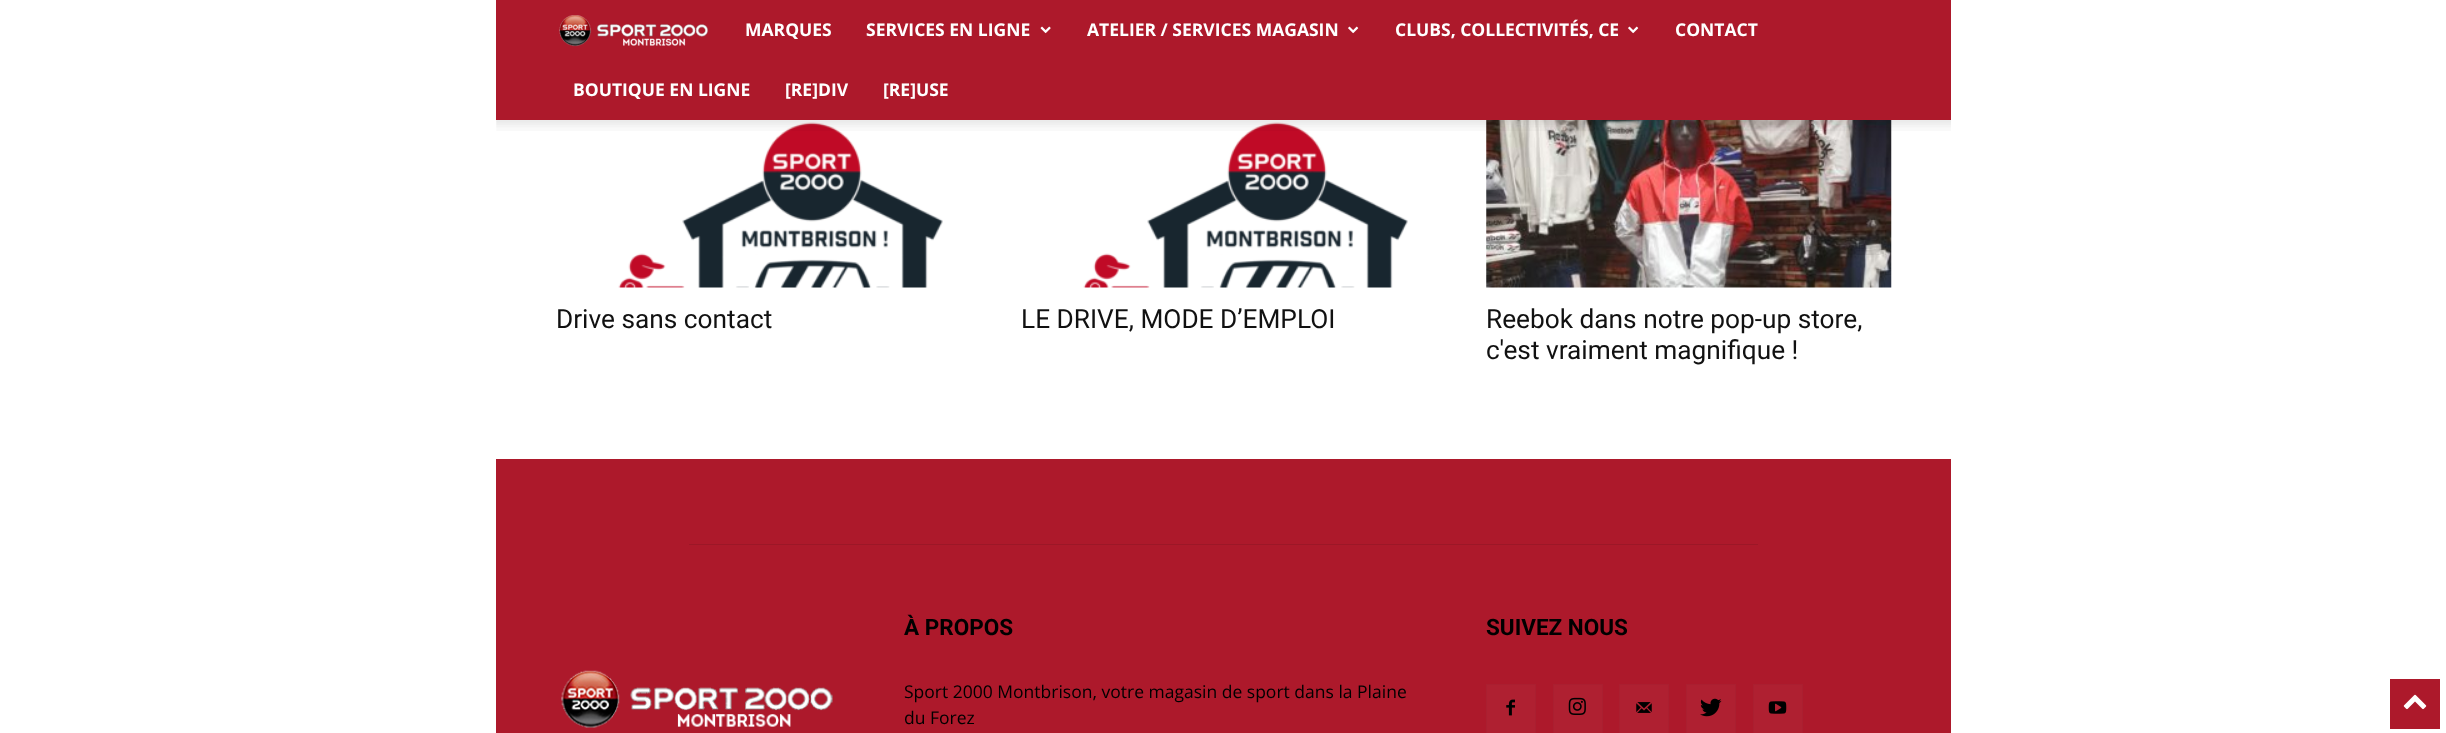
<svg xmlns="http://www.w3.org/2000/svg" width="2446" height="733">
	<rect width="100%" height="100%" fill="#FFFFFF" />
	<rect x="496" y="0" width="1455" height="120" fill="#AD192B" />
	<image x="559" y="15" width="150" height="32" href="assets/img1.png" />
	<g font-family="Open Sans" font-size="17.5" font-weight="700" fill="#FFFFFF">
		<text x="745" y="36">MARQUES</text>
		<text x="866" y="36">SERVICES EN LIGNE</text>
	</g>
	<image x="1040" y="26" width="11" height="8" href="assets/img2.png" />
	<text x="1087" y="36" font-family="Open Sans" font-size="17.5" font-weight="700" fill="#FFFFFF">ATELIER / SERVICES MAGASIN</text>
	<image x="1348" y="26" width="11" height="8" href="assets/img3.png" />
	<text x="1395" y="36" font-family="Open Sans" font-size="17.5" font-weight="700" fill="#FFFFFF">CLUBS, COLLECTIVITÉS, CE</text>
	<image x="1628" y="26" width="11" height="8" href="assets/img3.png" />
	<g font-family="Open Sans" font-size="17.5" font-weight="700" fill="#FFFFFF">
		<text x="1675" y="36">CONTACT</text>
		<text x="573" y="96">BOUTIQUE EN LIGNE</text>
		<text x="785" y="96">[RE]DIV</text>
		<text x="883" y="96">[RE]USE</text>
	</g>
	<image x="618" y="122" width="325" height="166" href="assets/img5.png" />
	<image x="1083" y="122" width="325" height="166" href="assets/img6.png" />
	<image x="1486" y="120" width="406" height="168" href="assets/img7.png" />
	<image x="496" y="120" width="1455" height="11" href="assets/img4.png" />
	<g font-family="Roboto" font-size="26.25" fill="#111111">
		<text x="556" y="328">Drive sans contact</text>
		<text x="1021" y="328">LE DRIVE, MODE D’EMPLOI</text>
		<text x="1486" y="328">Reebok dans notre pop-up store,</text>
		<text x="1486" y="359">c'est vraiment magnifique !</text>
	</g>
	<rect x="496" y="459" width="1455" height="274" fill="#AD192B" />
	<rect x="689" y="544" width="1069" height="1" fill="#9C1727" />
	<text x="904" y="635" font-family="Roboto" font-size="22.5" font-weight="700" fill="#000000">À PROPOS</text>
	<g font-family="Open Sans" font-size="17.5" fill="#000000">
		<text x="904" y="698">Sport 2000 Montbrison, votre magasin de sport dans la Plaine</text>
		<text x="904" y="724">du Forez</text>
	</g>
	<text x="1486" y="635" font-family="Roboto" font-size="22.5" font-weight="700" fill="#000000">SUIVEZ NOUS</text>
	<rect x="1487" y="685" width="48" height="48" fill="#AF2031" />
	<image x="1506" y="699" width="9" height="17" href="assets/img8.png" />
	<rect x="1486.5" y="684.5" width="49" height="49" fill="none" stroke="#AA1F30" />
	<rect x="1554" y="685" width="48" height="48" fill="#AF2031" />
	<image x="1568" y="697" width="18" height="18" href="assets/img9.png" />
	<rect x="1553.5" y="684.5" width="49" height="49" fill="none" stroke="#AA1F30" />
	<rect x="1620" y="685" width="48" height="48" fill="#AF2031" />
	<image x="1636" y="702" width="16" height="11" href="assets/img10.png" />
	<rect x="1619.5" y="684.5" width="49" height="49" fill="none" stroke="#AA1F30" />
	<rect x="1687" y="685" width="48" height="48" fill="#AF2031" />
	<image x="1700" y="698" width="22" height="19" href="assets/img11.png" />
	<rect x="1686.5" y="684.5" width="49" height="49" fill="none" stroke="#AA1F30" />
	<rect x="1754" y="685" width="48" height="48" fill="#AF2031" />
	<image x="1768" y="701" width="19" height="13" href="assets/img12.png" />
	<rect x="1753.5" y="684.5" width="49" height="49" fill="none" stroke="#AA1F30" />
	<image x="561" y="670" width="272" height="58" href="assets/img13.png" />
	<rect x="2390" y="679" width="50" height="50" fill="#AD192B" />
	<image x="2403" y="694" width="24" height="16" href="assets/img14.png" />
</svg>
